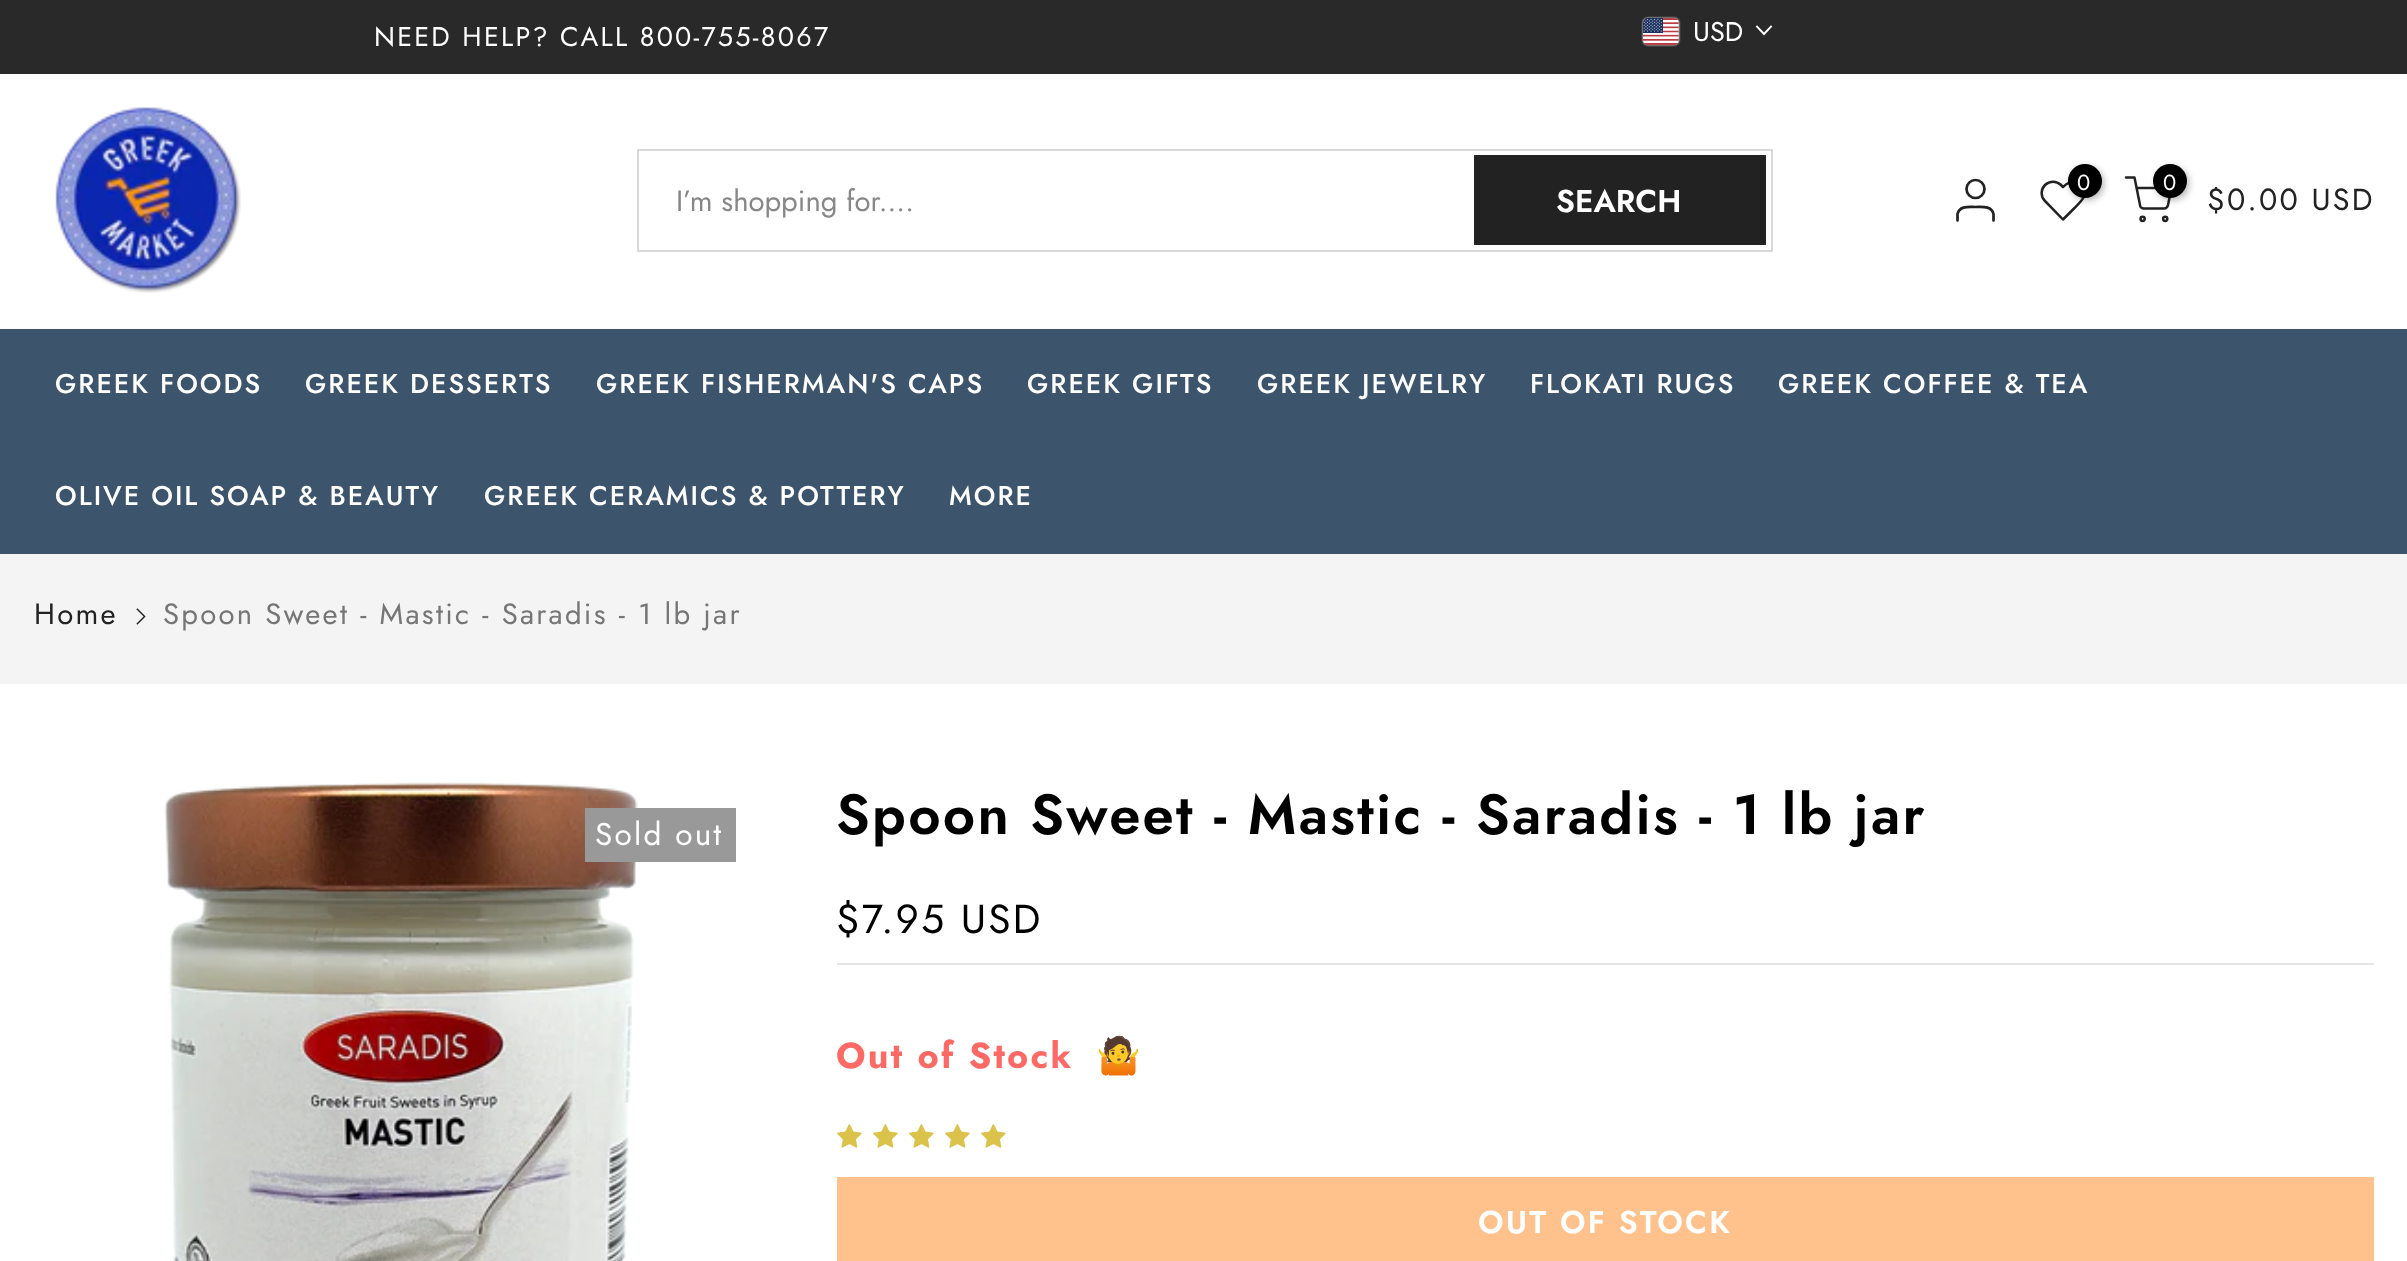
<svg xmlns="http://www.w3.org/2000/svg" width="2407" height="1261">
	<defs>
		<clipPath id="clip1"><rect x="2207" y="187" width="167" height="29" /></clipPath>
	</defs>
	<rect width="100%" height="100%" fill="#FFFFFF" />
	<rect x="0" y="0" width="2407" height="74" fill="#292929" />
	<text x="374" y="46" font-family="Jost" font-size="27" letter-spacing="2.25" fill="#FFFFFF">NEED HELP? CALL 800-755-8067</text>
	<rect x="1643" y="18" width="36" height="27" rx="5" fill="#FFFFFF" filter="blur(1px)" />
	<image x="1643" y="18" width="36" height="27" href="assets/img1.png" />
	<text x="1693" y="41" font-family="Jost" font-size="27" fill="#FFFFFF">USD</text>
	<path d="M1771 26.5L1764 34L1757 26.5" fill="none" stroke="#FFFFFF" stroke-width="1.9" stroke-linecap="square" />
	<image x="55" y="107" width="186" height="186" href="assets/img2.png" />
	<rect x="638" y="150" width="1134" height="101" fill="none" stroke="#D9D9D9" stroke-width="2" />
	<text x="676" y="211" font-family="Jost" font-size="29.25" fill="#878787">I’m shopping for....</text>
	<rect x="1474" y="155" width="292" height="90" fill="#222222" />
	<text x="1556" y="212" font-family="Jost" font-size="31.5" font-weight="600" fill="#FFFFFF">SEARCH</text>
	<circle cx="1975.5" cy="189" r="9" fill="none" stroke="#222222" stroke-width="2.7" />
	<path d="M1993.5 220.5V214C1991.5 205.5 1982 207 1975.5 207C1969 207 1959.5 205.5 1957.5 214V220.5" fill="none" stroke="#222222" stroke-width="2.7" stroke-linecap="round" stroke-linejoin="round" />
	<path d="M2081.5 185C2075.5 179 2068.5 182 2063 187L2061 185C2056.5 180.5 2049.5 180.5 2045 185C2040.5 189.5 2040.5 196.5 2045 201L2063 219.5L2074 208.5C2080 202.5 2090.5 194 2081.5 185Z" fill="none" stroke="#222222" stroke-width="2.5" stroke-linecap="round" stroke-linejoin="round" />
	<rect x="2070" y="167" width="34" height="33" rx="16.5" fill="#000000" fill-opacity="0.3" filter="blur(3.5px)" />
	<circle cx="2085" cy="181" r="17" fill="#000000" />
	<text x="2077" y="190" font-family="Jost" font-size="22" fill="#FFFFFF">0</text>
	<path d="M2126 177.5H2134.5L2140 205C2140 207 2142 208.5 2144 208.5H2164C2166 208.5 2167.5 207 2168 205L2171.5 188H2136.5" fill="none" stroke="#222222" stroke-width="2.5" stroke-linecap="round" stroke-linejoin="round" />
	<rect x="2156" y="167" width="33" height="33" rx="16.5" fill="#000000" fill-opacity="0.3" filter="blur(3.5px)" />
	<circle cx="2170" cy="181" r="17" fill="#000000" />
	<text x="2163" y="190" font-family="Jost" font-size="22" fill="#FFFFFF">0</text>
	<circle cx="2142.6" cy="218.8" r="2.1" fill="none" stroke="#222222" stroke-width="2.5" />
	<circle cx="2165.2" cy="218.8" r="2.1" fill="none" stroke="#222222" stroke-width="2.5" />
	<g clip-path="url(#clip1)">
		<text x="2207" y="210" font-family="Jost" font-size="30.5" letter-spacing="2.25" fill="#222222">$0.00 USD</text>
	</g>
	<rect x="0" y="329" width="2407" height="225" fill="#3C546C" />
	<g font-family="Jost" font-size="27" font-weight="500" letter-spacing="2" fill="#FFFFFF">
		<text x="55" y="393">GREEK FOODS</text>
		<text x="305" y="393">GREEK DESSERTS</text>
		<text x="596" y="393">GREEK FISHERMAN'S CAPS</text>
		<text x="1027" y="393">GREEK GIFTS</text>
		<text x="1257" y="393">GREEK JEWELRY</text>
		<text x="1530" y="393">FLOKATI RUGS</text>
		<text x="1778" y="393">GREEK COFFEE &amp; TEA</text>
		<text x="55" y="505">OLIVE OIL SOAP &amp; BEAUTY</text>
		<text x="484" y="505">GREEK CERAMICS &amp; POTTERY</text>
		<text x="949" y="505">MORE</text>
	</g>
	<rect x="0" y="554" width="2407" height="130" fill="#F4F4F4" />
	<text x="34" y="624" font-family="Jost" font-size="29.25" letter-spacing="2.25" fill="#222222">Home</text>
	<image x="136" y="608" width="10" height="17" href="assets/img3.png" />
	<text x="163" y="624" font-family="Jost" font-size="29.25" letter-spacing="2.25" fill="#767676">Spoon Sweet - Mastic - Saradis - 1 lb jar</text>
	<image x="164" y="782" width="474" height="479" href="assets/img4.png" />
	<rect x="585" y="808" width="151" height="54" fill="#999999" />
	<text x="595" y="845" font-family="Jost" font-size="31.5" letter-spacing="2.25" fill="#FFFFFF">Sold out</text>
	<text x="836" y="834" font-family="Jost" font-size="56.25" font-weight="600" letter-spacing="2.25" fill="#000000">Spoon Sweet - Mastic - Saradis - 1 lb jar</text>
	<rect x="837" y="963" width="1537" height="2" fill="#E5E5E5" />
	<text x="836" y="933" font-family="Jost" font-size="40.5" letter-spacing="2.25" fill="#000000">$7.95 USD</text>
	<text x="836" y="1068" font-family="Jost" font-size="36" font-weight="700" letter-spacing="2.25" fill="#FD6A66">Out of Stock</text>
	<text x="1096" y="1068" font-family="Noto Color Emoji" font-size="36" font-weight="700" letter-spacing="2.25" fill="#FD6A66">🤷</text>
	<image x="837" y="1124" width="25" height="24" href="assets/img5.png" />
	<image x="873" y="1124" width="25" height="24" href="assets/img5.png" />
	<image x="909" y="1124" width="25" height="24" href="assets/img5.png" />
	<image x="945" y="1124" width="25" height="24" href="assets/img5.png" />
	<image x="981" y="1124" width="25" height="24" href="assets/img5.png" />
	<rect x="837" y="1177" width="1537" height="84" fill="#FFC28D" />
	<text x="1478" y="1233" font-family="Jost" font-size="31.5" font-weight="600" letter-spacing="2.25" fill="#FFFFFF">OUT OF STOCK</text>
</svg>
